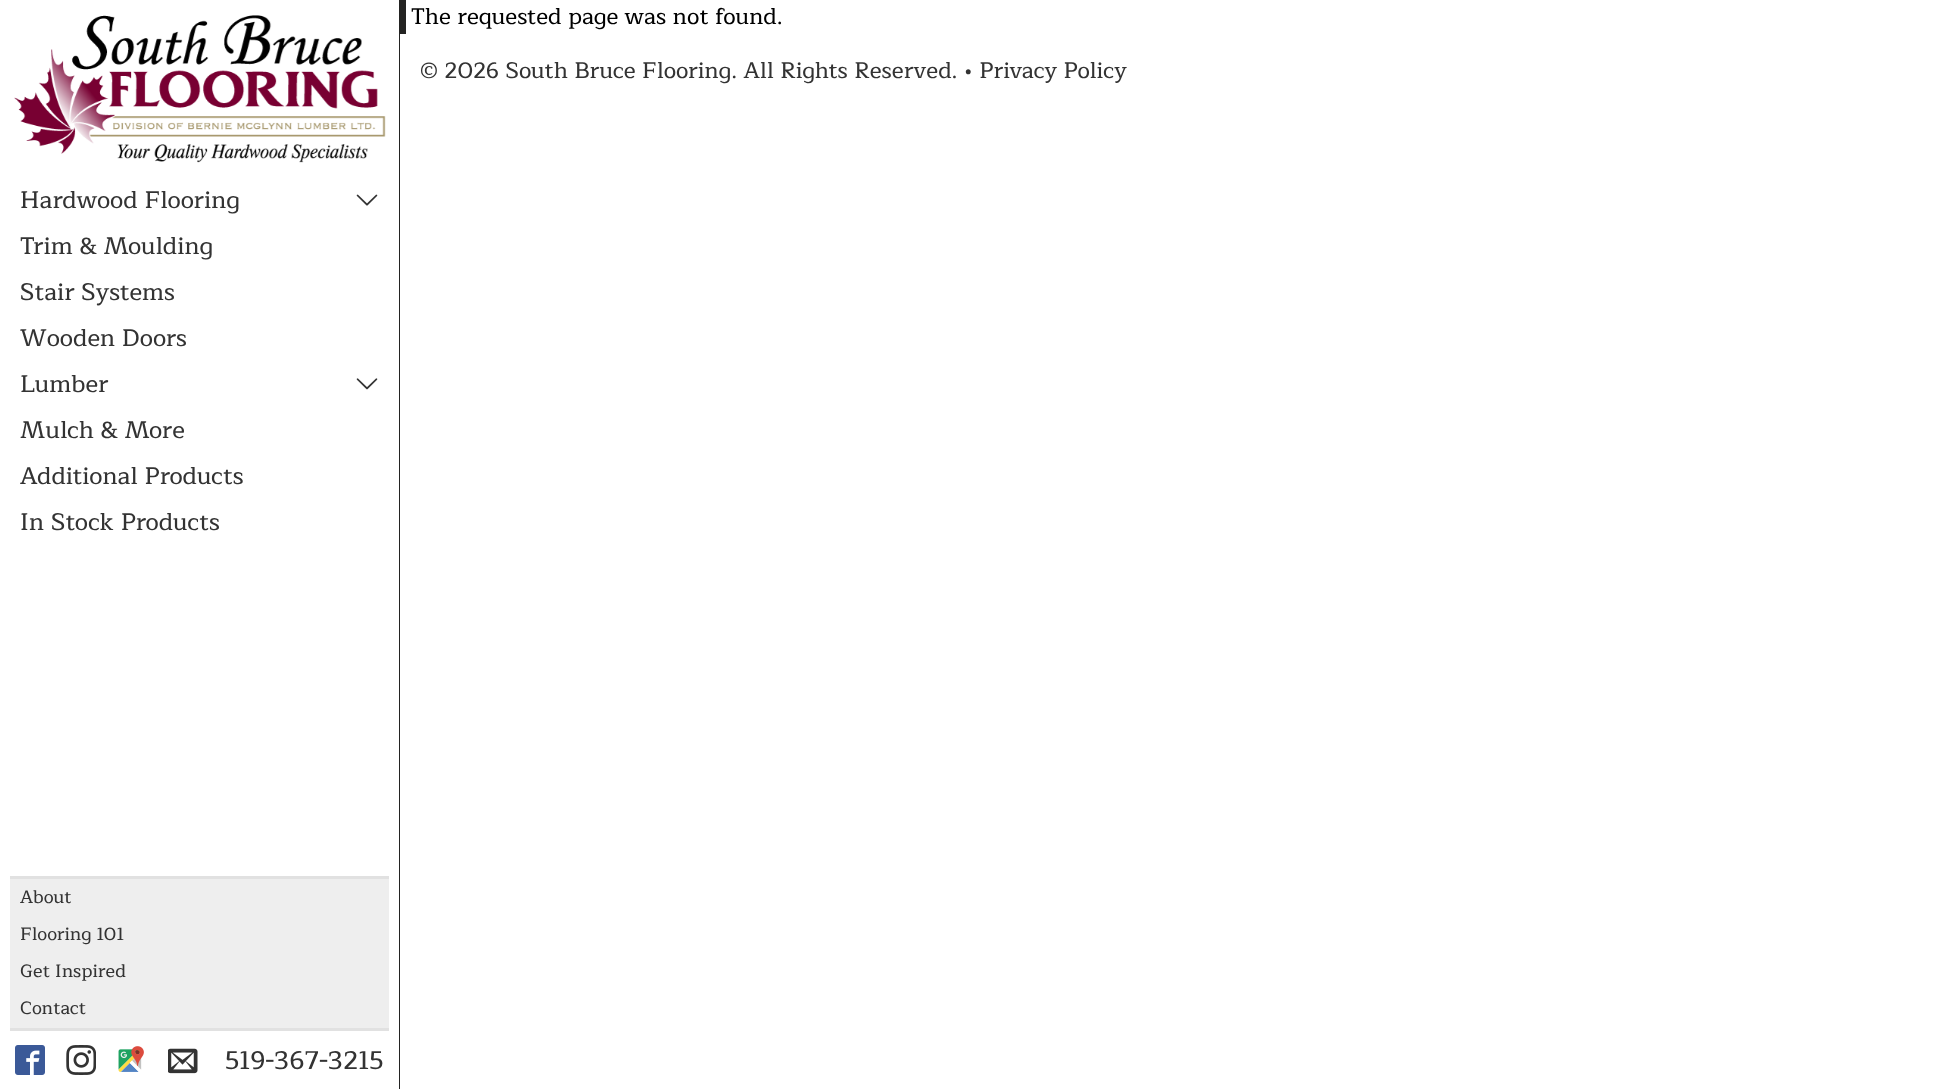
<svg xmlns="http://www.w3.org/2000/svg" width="1960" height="1089">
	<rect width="100%" height="100%" fill="#FFFFFF" />
	<rect x="400" y="0" width="6" height="34" fill="#232322" />
	<text x="411" y="24" font-family="Maitree" font-size="22.5" font-weight="500" fill="#000000">The requested page was not found.</text>
	<text x="420" y="78" font-family="Maitree" font-size="22.5" font-weight="500" fill="#333333">© 2026 South Bruce Flooring. All Rights Reserved. • Privacy Policy</text>
	<rect x="399" y="0" width="1" height="1089" fill="#232322" />
	<image x="14" y="15" width="372" height="148" href="assets/img1.png" />
	<text x="20" y="208" font-family="Maitree" font-size="24" font-weight="500" fill="#333333">Hardwood Flooring</text>
	<image x="356" y="194" width="22" height="12" href="assets/img2.png" />
	<g font-family="Maitree" font-size="24" font-weight="500" fill="#333333">
		<text x="20" y="254">Trim &amp; Moulding</text>
		<text x="20" y="300">Stair Systems</text>
		<text x="20" y="346">Wooden Doors</text>
		<text x="20" y="392">Lumber</text>
	</g>
	<image x="356" y="378" width="22" height="12" href="assets/img3.png" />
	<g font-family="Maitree" font-size="24" font-weight="500" fill="#333333">
		<text x="20" y="438">Mulch &amp; More</text>
		<text x="20" y="484">Additional Products</text>
		<text x="20" y="530">In Stock Products</text>
	</g>
	<rect x="10" y="879" width="379" height="149" fill="#EEEEEE" />
	<rect x="10" y="876" width="379" height="3" fill="#E1E1E1" />
	<rect x="10" y="1028" width="379" height="3" fill="#E1E1E1" />
	<g font-family="Maitree" font-size="18" font-weight="500" fill="#333333">
		<text x="20" y="903">About</text>
		<text x="20" y="940">Flooring 101</text>
		<text x="20" y="977">Get Inspired</text>
		<text x="20" y="1014">Contact</text>
	</g>
	<image x="15" y="1045" width="30" height="30" href="assets/img4.png" />
	<image x="66" y="1045" width="30" height="30" href="assets/img5.png" />
	<image x="118" y="1046" width="26" height="26" href="assets/img6.png" />
	<image x="168" y="1048" width="30" height="26" href="assets/img7.png" />
	<text x="225" y="1069" font-family="Maitree" font-size="26" font-weight="500" fill="#333333">519-367-3215</text>
</svg>
